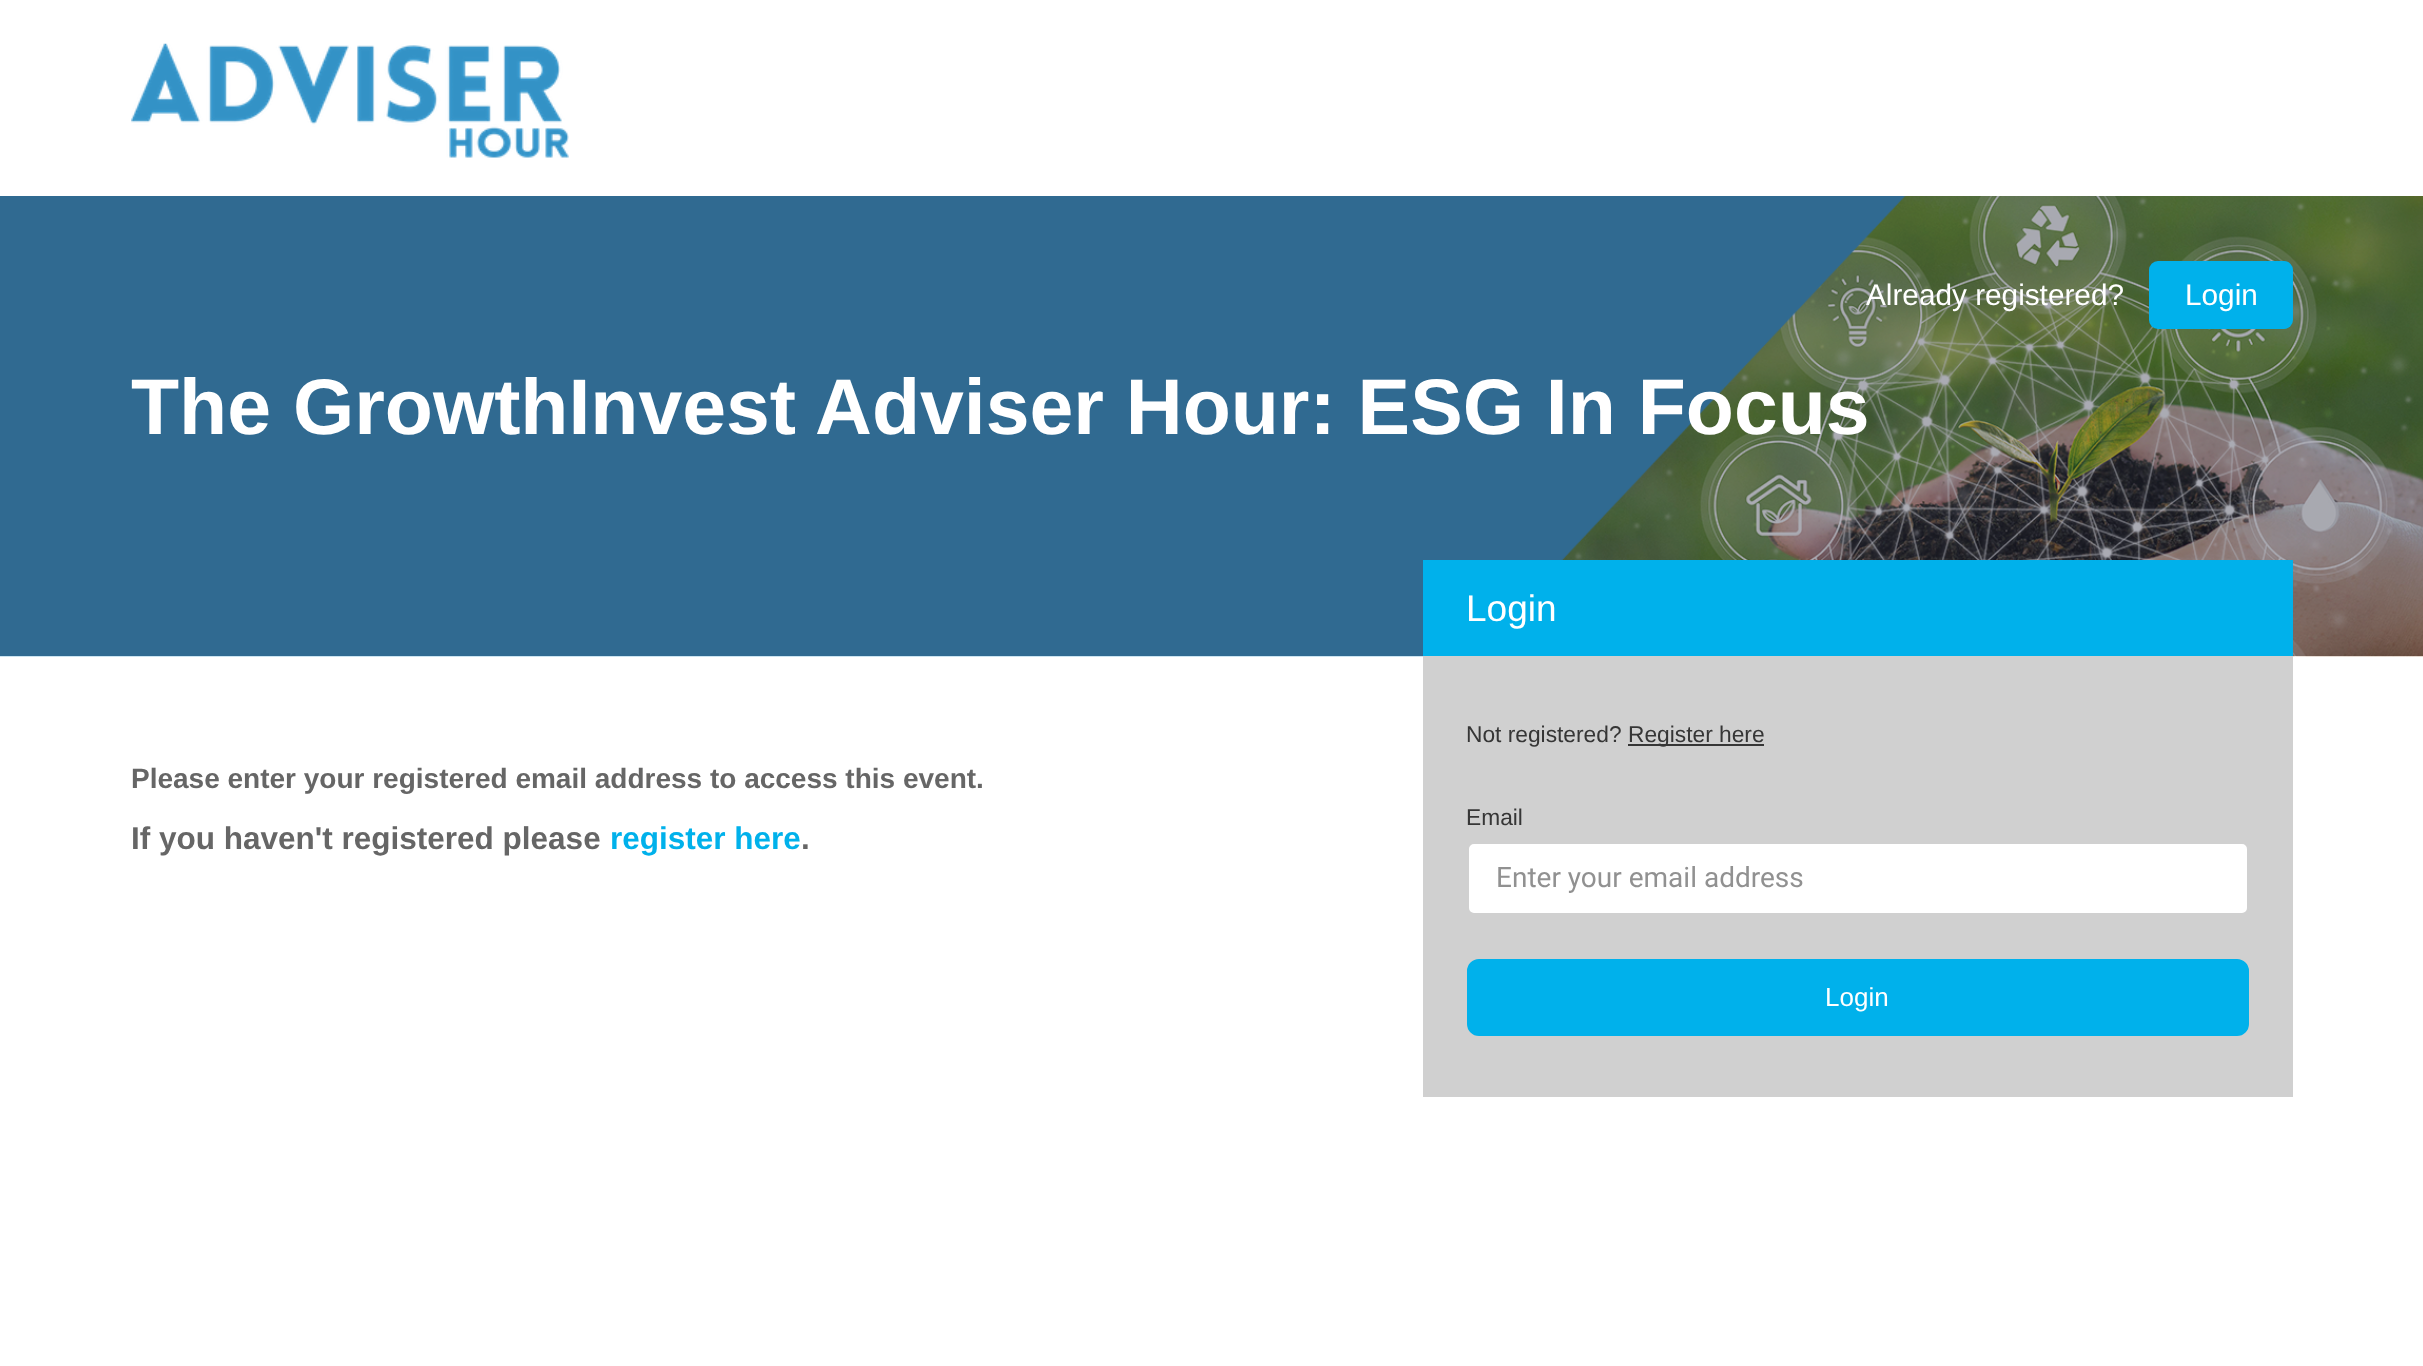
<svg xmlns="http://www.w3.org/2000/svg" width="2423" height="1366">
	<rect width="100%" height="100%" fill="#FFFFFF" />
	<image x="131" y="43" width="438" height="115" href="assets/img1.png" />
	<image x="0" y="196" width="2423" height="461" href="assets/img2.png" />
	<text x="1866" y="305" font-family="Liberation Sans" font-size="29.75" fill="#FFFFFF">Already registered?</text>
	<rect x="2149" y="261" width="144" height="68" rx="9" fill="#00B1EB" />
	<text x="2185" y="305" font-family="Liberation Sans" font-size="29.75" fill="#FFFFFF">Login</text>
	<text x="131" y="434" font-family="Liberation Sans" font-size="78.75" font-weight="700" fill="#FFFFFF">The GrowthInvest Adviser Hour: ESG In Focus</text>
	<text x="131" y="788" font-family="Liberation Sans" font-size="28" font-weight="700" fill="#666666">Please enter your registered email address to access this event.</text>
	<text x="131" y="849" font-family="Liberation Sans" font-size="31.5" font-weight="700" fill="#666666">If you haven't registered please</text>
	<text x="610" y="849" font-family="Liberation Sans" font-size="31.5" font-weight="700" fill="#00B1EB">register here</text>
	<text x="801" y="849" font-family="Liberation Sans" font-size="31.5" font-weight="700" fill="#666666">.</text>
	<rect x="1423" y="560" width="870" height="96" fill="#00B1EB" />
	<text x="1466" y="621" font-family="Liberation Sans" font-size="37" fill="#FFFFFF">Login</text>
	<rect x="1423" y="656" width="870" height="441" fill="#D0D0D0" />
	<text x="1466" y="742" font-family="Liberation Sans" font-size="22.75" fill="#363636">Not registered?</text>
	<rect x="1628" y="744" width="136" height="2" fill="#363636" />
	<g font-family="Liberation Sans" font-size="22.75" fill="#363636">
		<text x="1628" y="742">Register here</text>
		<text x="1466" y="825">Email</text>
	</g>
	<rect x="1468" y="843" width="780" height="71" rx="6" fill="#FFFFFF" stroke="#D0D0D0" stroke-width="2" />
	<text x="1496" y="887" font-family="Roboto" font-size="28" fill="#919191">Enter your email address</text>
	<rect x="1468" y="960" width="780" height="75" rx="11" fill="#00B1EB" stroke="#00B1EB" stroke-width="2" />
	<text x="1825" y="1006" font-family="Liberation Sans" font-size="26" fill="#FFFFFF">Login</text>
</svg>
